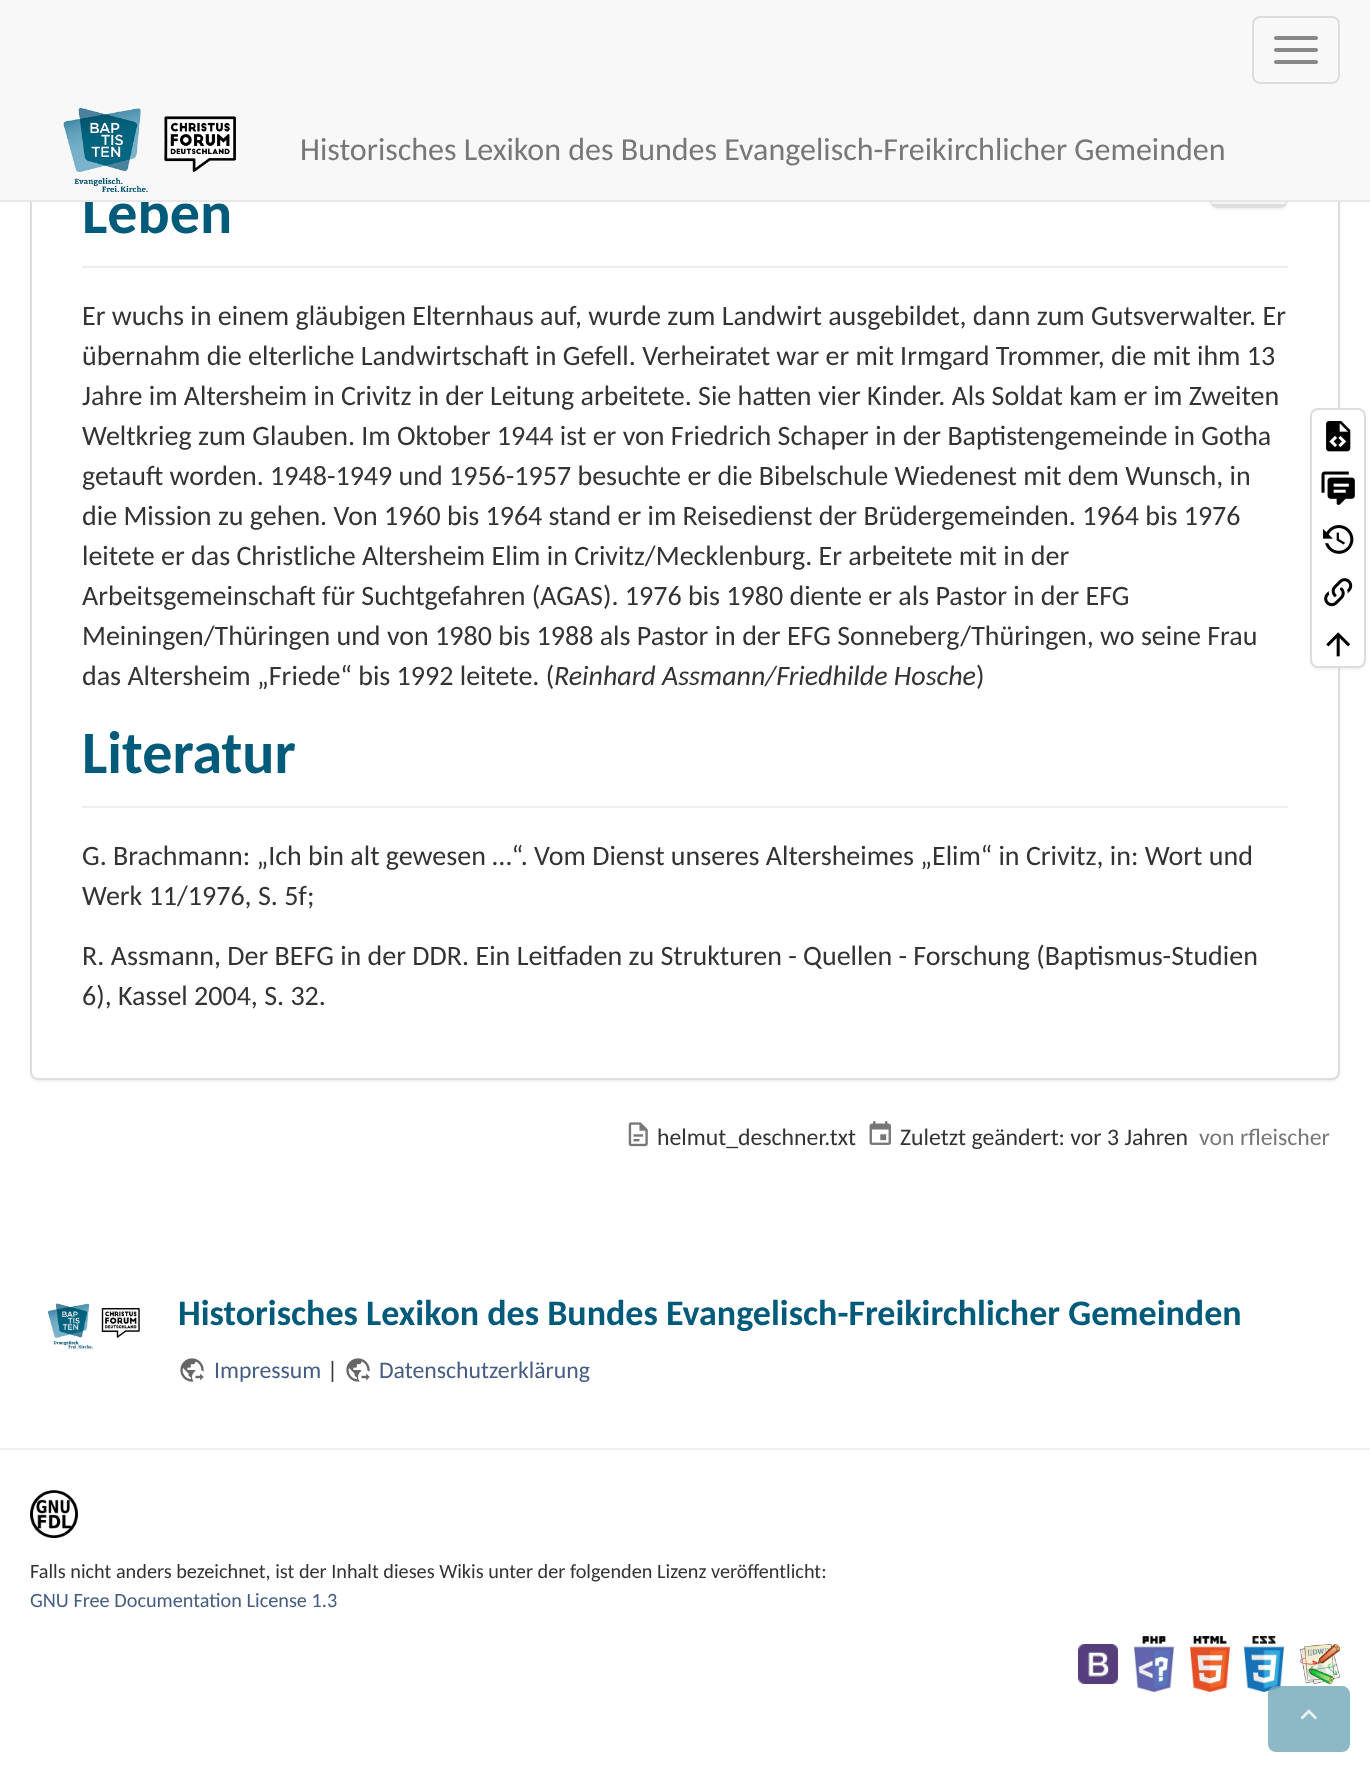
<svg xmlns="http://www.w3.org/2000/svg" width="1370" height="1771">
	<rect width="100%" height="100%" fill="#FFFFFF" />
	<rect x="30" y="-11" width="1310" height="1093" rx="8" fill="#000000" fill-opacity="0.05" filter="blur(1px)" />
	<rect x="31" y="-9" width="1308" height="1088" rx="7" fill="#FFFFFF" stroke="#DDDDDD" stroke-width="2" />
	<rect x="1210" y="152" width="78" height="58" rx="8" fill="#000000" fill-opacity="0.05" filter="blur(1px)" />
	<rect x="1211" y="151" width="76" height="56" rx="7" fill="none" stroke="#DDDDDD" stroke-width="2" />
	<text x="82" y="233" font-family="Carlito" font-size="60" font-weight="700" fill="#005A7A">Leben</text>
	<rect x="0" y="0" width="1370" height="200" fill="#F8F8F8" />
	<rect x="0" y="200" width="1370" height="2" fill="#E7E7E7" />
	<rect x="1253" y="17" width="86" height="66" rx="7" fill="none" stroke="#DDDDDD" stroke-width="2" />
	<rect x="1274" y="36" width="44" height="4" rx="2" fill="#888888" />
	<rect x="1274" y="48" width="44" height="4" rx="2" fill="#888888" />
	<rect x="1274" y="60" width="44" height="4" rx="2" fill="#888888" />
	<image x="63" y="107" width="173" height="85" href="assets/img1.png" />
	<text x="300" y="160" font-family="Carlito" font-size="32" fill="#777777">Historisches Lexikon des Bundes Evangelisch-Freikirchlicher Gemeinden</text>
	<rect x="1212" y="202" width="74" height="2" fill="#F5F5F5" />
	<rect x="1212" y="204" width="74" height="2" fill="#DDDDDD" />
	<rect x="82" y="266" width="1206" height="2" fill="#EEEEEE" />
	<g font-family="Carlito" font-size="28" fill="#333333">
		<text x="82" y="325">Er wuchs in einem gläubigen Elternhaus auf, wurde zum Landwirt ausgebildet, dann zum Gutsverwalter. Er</text>
		<text x="82" y="365">übernahm die elterliche Landwirtschaft in Gefell. Verheiratet war er mit Irmgard Trommer, die mit ihm 13</text>
		<text x="82" y="405">Jahre im Altersheim in Crivitz in der Leitung arbeitete. Sie hatten vier Kinder. Als Soldat kam er im Zweiten</text>
		<text x="82" y="445">Weltkrieg zum Glauben. Im Oktober 1944 ist er von Friedrich Schaper in der Baptistengemeinde in Gotha</text>
		<text x="82" y="485">getauft worden. 1948-1949 und 1956-1957 besuchte er die Bibelschule Wiedenest mit dem Wunsch, in</text>
		<text x="82" y="525">die Mission zu gehen. Von 1960 bis 1964 stand er im Reisedienst der Brüdergemeinden. 1964 bis 1976</text>
		<text x="82" y="565">leitete er das Christliche Altersheim Elim in Crivitz/Mecklenburg. Er arbeitete mit in der</text>
		<text x="82" y="605">Arbeitsgemeinschaft für Suchtgefahren (AGAS). 1976 bis 1980 diente er als Pastor in der EFG</text>
		<text x="82" y="645">Meiningen/Thüringen und von 1980 bis 1988 als Pastor in der EFG Sonneberg/Thüringen, wo seine Frau</text>
		<text x="82" y="685">das Altersheim „Friede“ bis 1992 leitete. (</text>
	</g>
	<text x="554" y="685" font-family="Carlito" font-size="28" font-style="italic" fill="#333333">Reinhard Assmann/Friedhilde Hosche</text>
	<text x="976" y="685" font-family="Carlito" font-size="28" fill="#333333">)</text>
	<rect x="82" y="806" width="1206" height="2" fill="#EEEEEE" />
	<text x="82" y="773" font-family="Carlito" font-size="60" font-weight="700" fill="#005A7A">Literatur</text>
	<g font-family="Carlito" font-size="28" fill="#333333">
		<text x="82" y="865">G. Brachmann: „Ich bin alt gewesen …“. Vom Dienst unseres Altersheimes „Elim“ in Crivitz, in: Wort und</text>
		<text x="82" y="905">Werk 11/1976, S. 5f;</text>
		<text x="82" y="965">R. Assmann, Der BEFG in der DDR. Ein Leitfaden zu Strukturen - Quellen - Forschung (Baptismus-Studien</text>
		<text x="82" y="1005">6), Kassel 2004, S. 32.</text>
	</g>
	<rect x="1310" y="410" width="56" height="260" rx="8" fill="#000000" fill-opacity="0.05" filter="blur(1px)" />
	<rect x="1311" y="409" width="54" height="258" rx="7" fill="#FFFFFF" stroke="#DDDDDD" stroke-width="2" />
	<image x="1326" y="421" width="25" height="31" href="assets/img2.png" />
	<image x="1321" y="471" width="34" height="34" href="assets/img3.png" />
	<image x="1323" y="525" width="31" height="29" href="assets/img4.png" />
	<image x="1324" y="578" width="29" height="29" href="assets/img5.png" />
	<image x="1326" y="632" width="25" height="25" href="assets/img6.png" />
	<image x="628" y="1122" width="20" height="25" href="assets/img7.png" />
	<text x="657" y="1145" font-family="Carlito" font-size="23.75" fill="#333333">helmut_deschner.txt</text>
	<image x="869" y="1121" width="22" height="24" href="assets/img8.png" />
	<text x="900" y="1145" font-family="Carlito" font-size="23.75" fill="#333333">Zuletzt geändert: vor 3 Jahren</text>
	<text x="1199" y="1145" font-family="Carlito" font-size="23.75" fill="#777777">von rfleischer</text>
	<image x="48" y="1303" width="92" height="46" href="assets/img9.png" />
	<text x="178" y="1325" font-family="Carlito" font-size="36" font-weight="700" fill="#005A7A">Historisches Lexikon des Bundes Evangelisch-Freikirchlicher Gemeinden</text>
	<image x="180" y="1358" width="24" height="24" href="assets/img10.png" />
	<text x="214" y="1378" font-family="Carlito" font-size="23.75" fill="#455D82">Impressum</text>
	<text x="327" y="1378" font-family="Carlito" font-size="23.75" fill="#333333">|</text>
	<image x="346" y="1358" width="24" height="24" href="assets/img10.png" />
	<text x="379" y="1378" font-family="Carlito" font-size="23.75" fill="#455D82">Datenschutzerklärung</text>
	<rect x="0" y="1448" width="1370" height="2" fill="#EEEEEE" />
	<image x="30" y="1490" width="48" height="48" href="assets/img11.png" />
	<text x="30" y="1578" font-family="Carlito" font-size="20.25" fill="#333333">Falls nicht anders bezeichnet, ist der Inhalt dieses Wikis unter der folgenden Lizenz veröffentlicht:</text>
	<text x="30" y="1607" font-family="Carlito" font-size="20.25" fill="#455D82">GNU Free Documentation License 1.3</text>
	<image x="1078" y="1644" width="40" height="40" href="assets/img12.png" />
	<image x="1134" y="1636" width="40" height="56" href="assets/img13.png" />
	<image x="1190" y="1636" width="40" height="56" href="assets/img14.png" />
	<image x="1244" y="1636" width="40" height="56" href="assets/img15.png" />
	<image x="1300" y="1644" width="40" height="40" href="assets/img16.png" />
	<rect x="1268" y="1686" width="82" height="66" rx="8" fill="#71A6B6" fill-opacity="0.8" />
	<image x="1300" y="1709" width="17" height="11" href="assets/img17.png" />
</svg>
